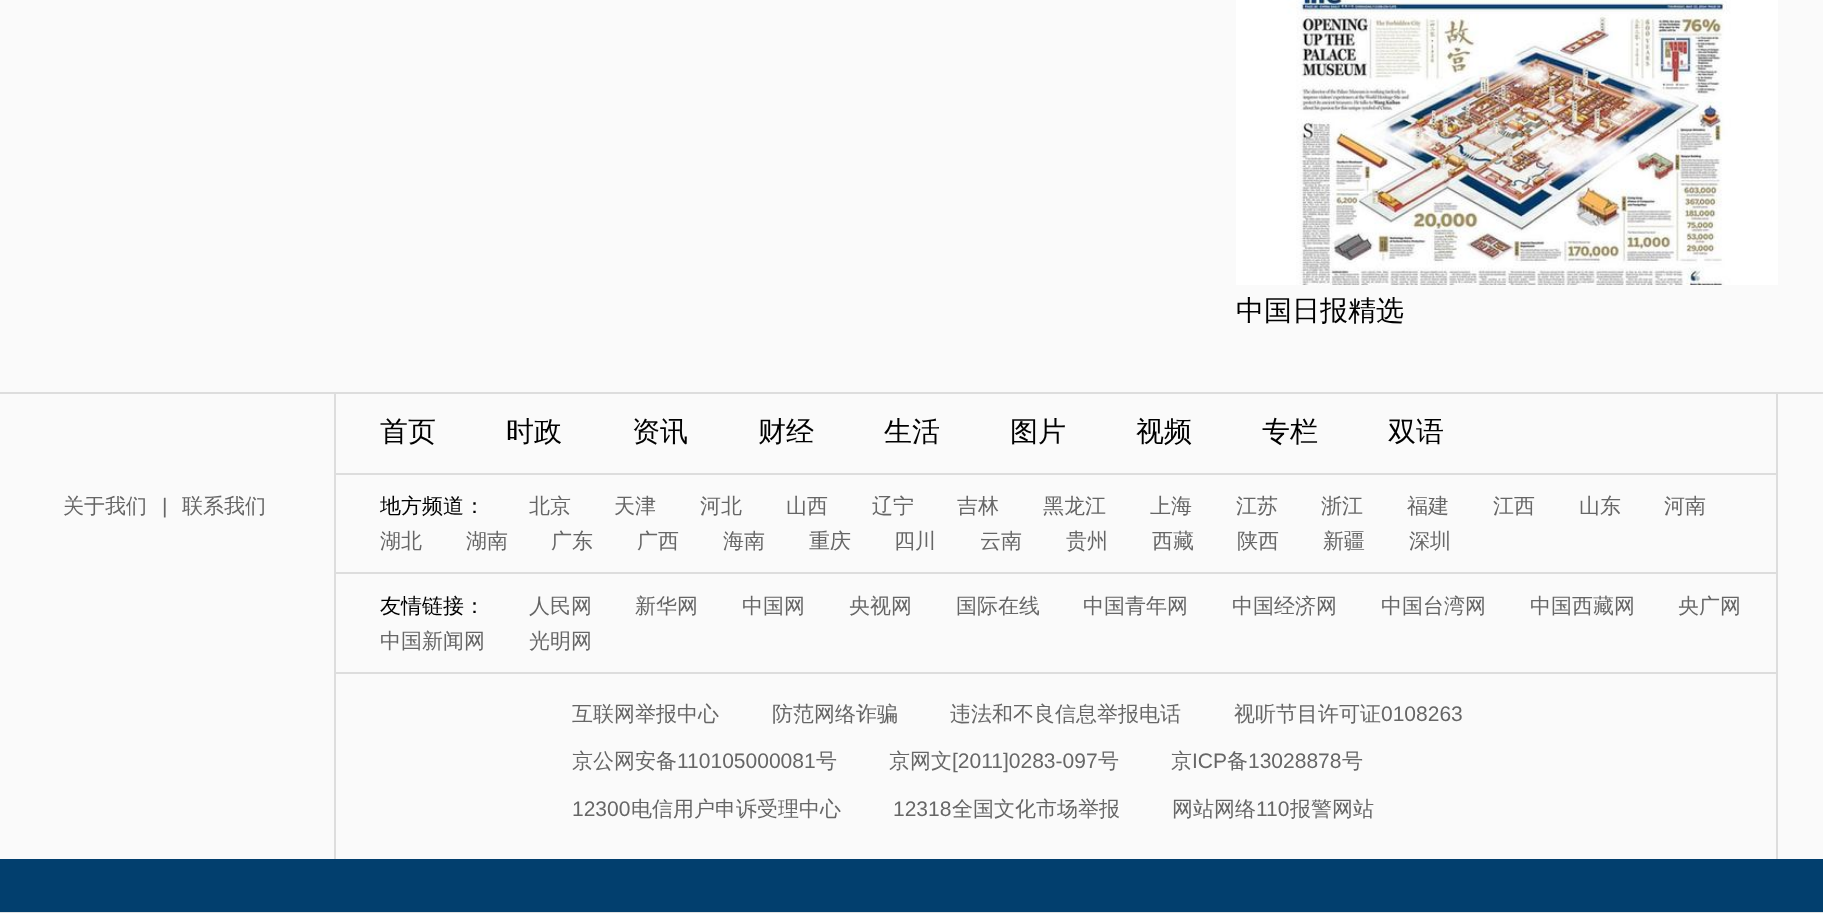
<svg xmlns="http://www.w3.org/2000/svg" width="1823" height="913">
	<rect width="100%" height="100%" fill="#FAFAFA" />
	<rect x="0" y="912" width="1823" height="1" fill="#E0E0E0" />
	<image x="1236" y="0" width="542" height="285" href="assets/img1.png" />
	<text x="1236" y="320" font-family="WenQuanYi Zen Hei" font-size="28" font-weight="500" fill="#000000">中国日报精选</text>
	<rect x="0" y="392" width="1823" height="2" fill="#DDDDDD" />
	<rect x="0" y="859" width="1823" height="53" fill="#023F6E" />
	<text x="63" y="513" font-family="WenQuanYi Zen Hei" font-size="21" font-weight="500" fill="#666666">关于我们</text>
	<text x="162" y="513" font-family="Liberation Sans" font-size="21" fill="#666666">|</text>
	<text x="182" y="513" font-family="WenQuanYi Zen Hei" font-size="21" font-weight="500" fill="#666666">联系我们</text>
	<rect x="1776" y="394" width="2" height="465" fill="#DDDDDD" />
	<rect x="334" y="394" width="2" height="465" fill="#DDDDDD" />
	<rect x="336" y="473" width="1440" height="2" fill="#DDDDDD" />
	<g font-family="WenQuanYi Zen Hei" font-size="28" font-weight="500" fill="#000000">
		<text x="380" y="441">首页</text>
		<text x="506" y="441">时政</text>
		<text x="632" y="441">资讯</text>
		<text x="758" y="441">财经</text>
		<text x="884" y="441">生活</text>
		<text x="1010" y="441">图片</text>
		<text x="1136" y="441">视频</text>
		<text x="1262" y="441">专栏</text>
		<text x="1388" y="441">双语</text>
	</g>
	<rect x="336" y="572" width="1440" height="2" fill="#DDDDDD" />
	<text x="380" y="513" font-family="WenQuanYi Zen Hei" font-size="21" font-weight="500" fill="#000000">地方频道：</text>
	<g font-family="WenQuanYi Zen Hei" font-size="21" font-weight="500" fill="#666666">
		<text x="529" y="513">北京</text>
		<text x="614" y="513">天津</text>
		<text x="700" y="513">河北</text>
		<text x="786" y="513">山西</text>
		<text x="872" y="513">辽宁</text>
		<text x="957" y="513">吉林</text>
		<text x="1043" y="513">黑龙江</text>
		<text x="1150" y="513">上海</text>
		<text x="1236" y="513">江苏</text>
		<text x="1321" y="513">浙江</text>
		<text x="1407" y="513">福建</text>
		<text x="1493" y="513">江西</text>
		<text x="1579" y="513">山东</text>
		<text x="1664" y="513">河南</text>
		<text x="380" y="548">湖北</text>
		<text x="466" y="548">湖南</text>
		<text x="551" y="548">广东</text>
		<text x="637" y="548">广西</text>
		<text x="723" y="548">海南</text>
		<text x="809" y="548">重庆</text>
		<text x="894" y="548">四川</text>
		<text x="980" y="548">云南</text>
		<text x="1066" y="548">贵州</text>
		<text x="1152" y="548">西藏</text>
		<text x="1237" y="548">陕西</text>
		<text x="1323" y="548">新疆</text>
		<text x="1409" y="548">深圳</text>
	</g>
	<rect x="336" y="672" width="1440" height="2" fill="#DDDDDD" />
	<text x="380" y="613" font-family="WenQuanYi Zen Hei" font-size="21" font-weight="500" fill="#000000">友情链接：</text>
	<g font-family="WenQuanYi Zen Hei" font-size="21" font-weight="500" fill="#666666">
		<text x="529" y="613">人民网</text>
		<text x="635" y="613">新华网</text>
		<text x="742" y="613">中国网</text>
		<text x="849" y="613">央视网</text>
		<text x="956" y="613">国际在线</text>
		<text x="1083" y="613">中国青年网</text>
		<text x="1232" y="613">中国经济网</text>
		<text x="1381" y="613">中国台湾网</text>
		<text x="1530" y="613">中国西藏网</text>
		<text x="1678" y="613">央广网</text>
		<text x="380" y="648">中国新闻网</text>
		<text x="529" y="648">光明网</text>
		<text x="572" y="721">互联网举报中心</text>
		<text x="772" y="721">防范网络诈骗</text>
		<text x="950" y="721">违法和不良信息举报电话</text>
		<text x="1234" y="721">视听节目许可证</text>
	</g>
	<text x="1381" y="721" font-family="Liberation Sans" font-size="21" fill="#666666">0108263</text>
	<text x="572" y="768" font-family="WenQuanYi Zen Hei" font-size="21" font-weight="500" fill="#666666">京公网安备</text>
	<text x="677" y="768" font-family="Liberation Sans" font-size="21" fill="#666666">110105000081</text>
	<g font-family="WenQuanYi Zen Hei" font-size="21" font-weight="500" fill="#666666">
		<text x="816" y="768">号</text>
		<text x="889" y="768">京网文</text>
	</g>
	<text x="952" y="768" font-family="Liberation Sans" font-size="21" fill="#666666">[2011]0283-097</text>
	<g font-family="WenQuanYi Zen Hei" font-size="21" font-weight="500" fill="#666666">
		<text x="1098" y="768">号</text>
		<text x="1171" y="768">京</text>
	</g>
	<text x="1192" y="768" font-family="Liberation Sans" font-size="21" fill="#666666">ICP</text>
	<text x="1227" y="768" font-family="WenQuanYi Zen Hei" font-size="21" font-weight="500" fill="#666666">备</text>
	<text x="1248" y="768" font-family="Liberation Sans" font-size="21" fill="#666666">13028878</text>
	<text x="1342" y="768" font-family="WenQuanYi Zen Hei" font-size="21" font-weight="500" fill="#666666">号</text>
	<text x="572" y="816" font-family="Liberation Sans" font-size="21" fill="#666666">12300</text>
	<text x="631" y="816" font-family="WenQuanYi Zen Hei" font-size="21" font-weight="500" fill="#666666">电信用户申诉受理中心</text>
	<text x="893" y="816" font-family="Liberation Sans" font-size="21" fill="#666666">12318</text>
	<g font-family="WenQuanYi Zen Hei" font-size="21" font-weight="500" fill="#666666">
		<text x="952" y="816">全国文化市场举报</text>
		<text x="1172" y="816">网站网络</text>
	</g>
	<text x="1256" y="816" font-family="Liberation Sans" font-size="21" fill="#666666">110</text>
	<text x="1290" y="816" font-family="WenQuanYi Zen Hei" font-size="21" font-weight="500" fill="#666666">报警网站</text>
</svg>
